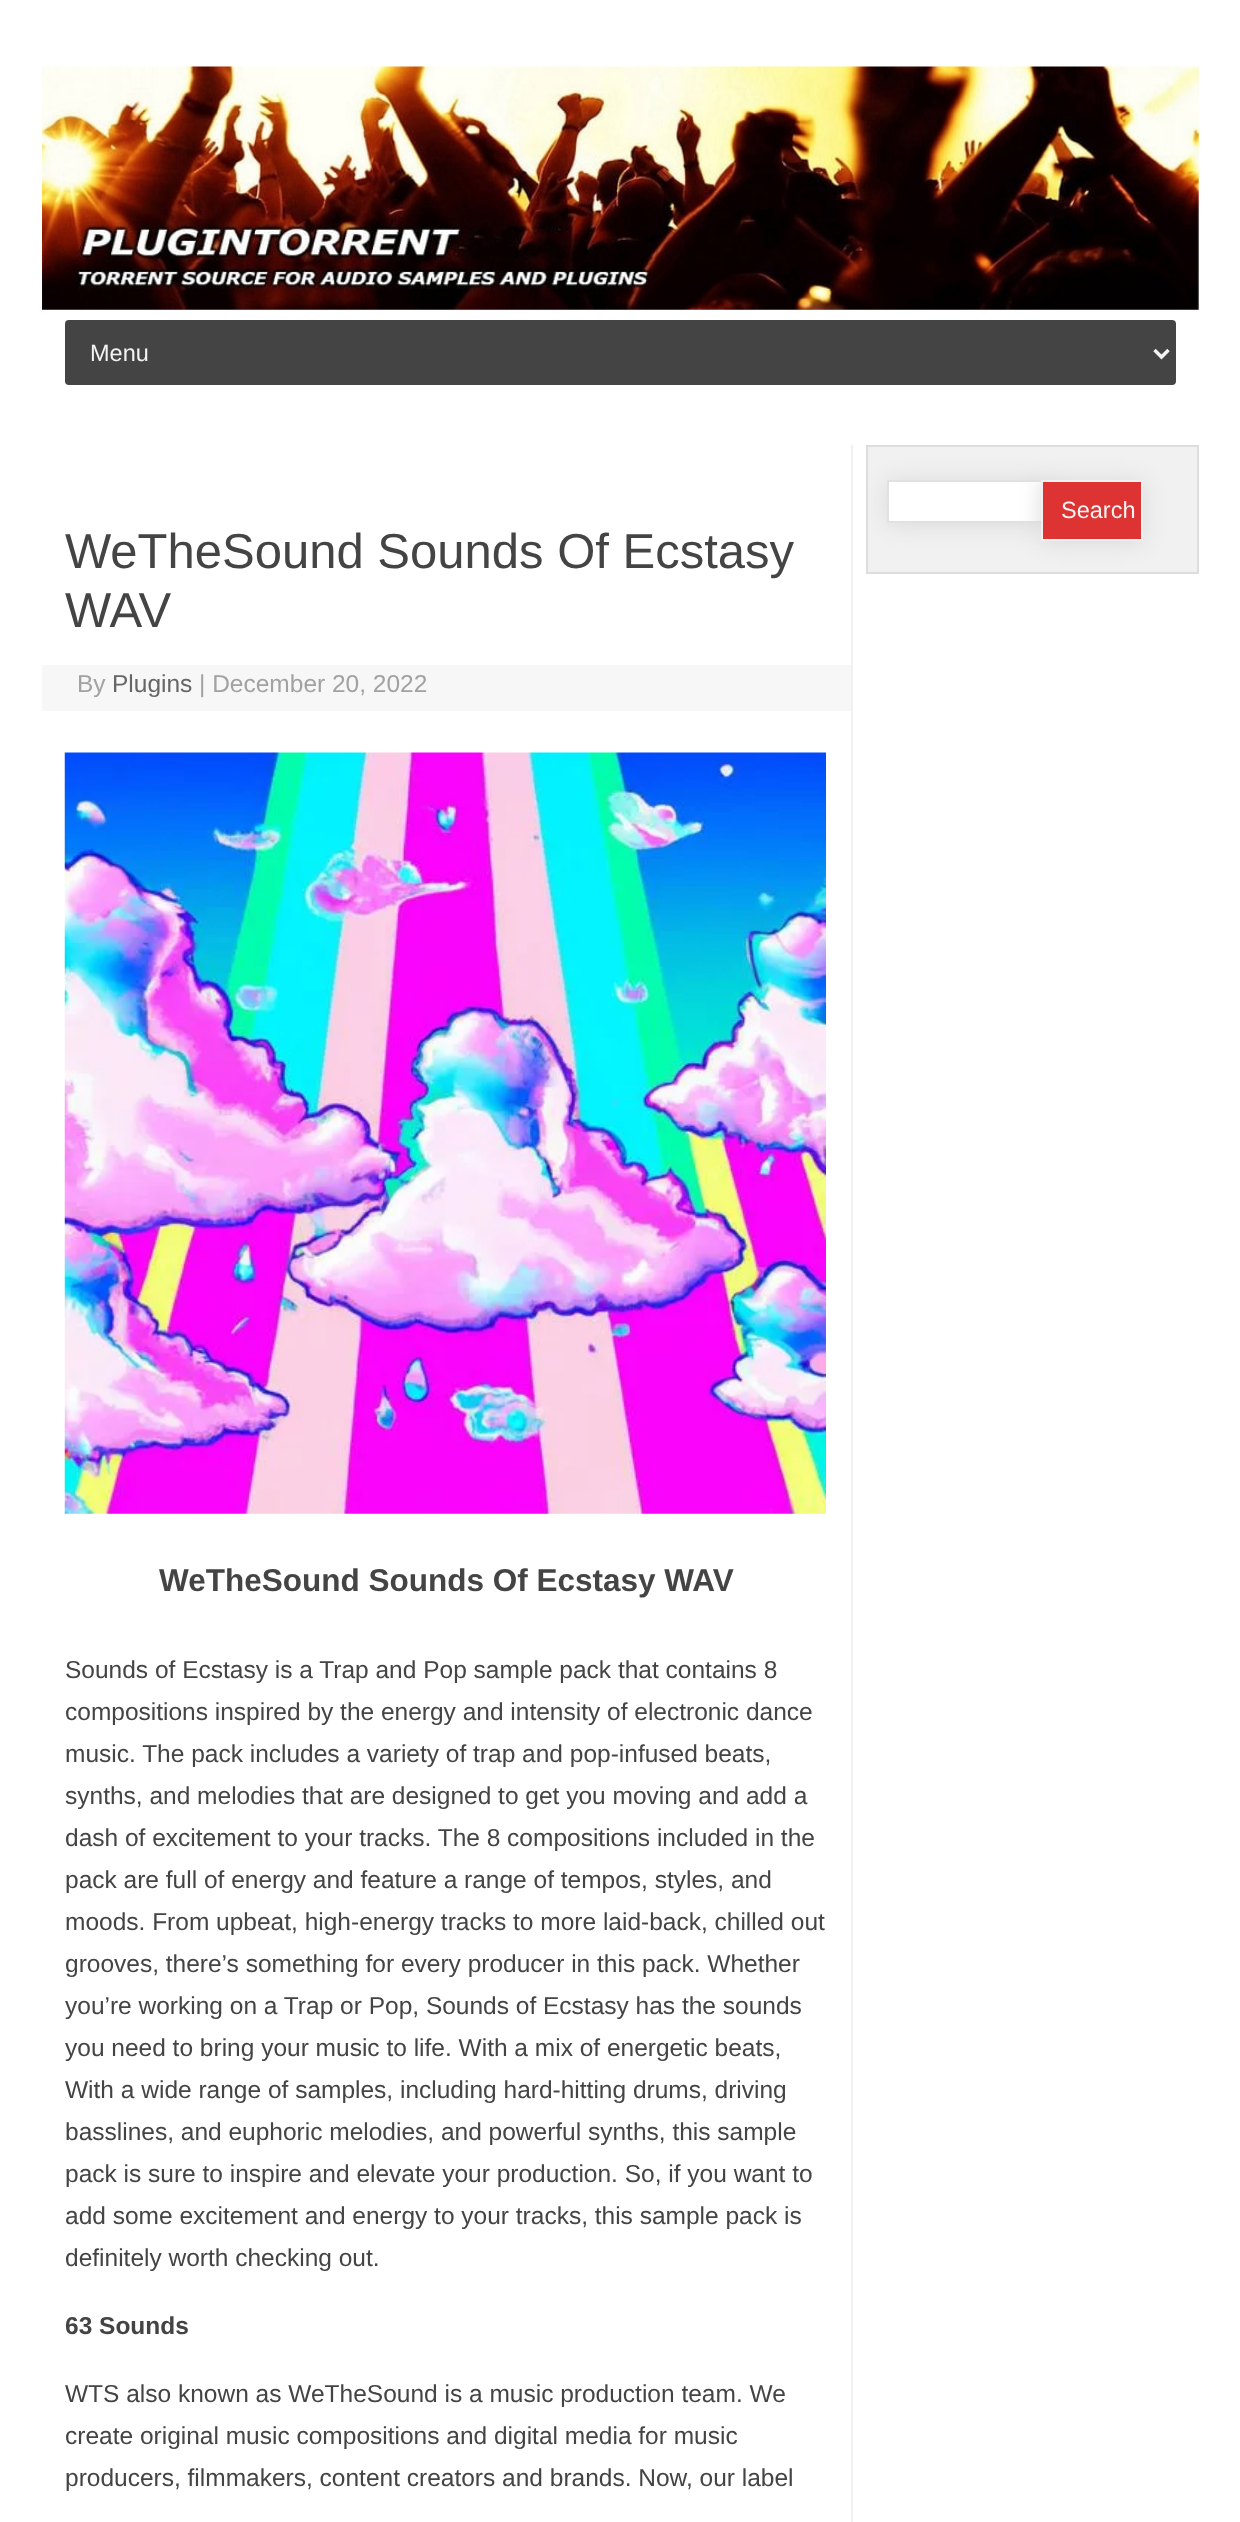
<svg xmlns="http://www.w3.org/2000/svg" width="1240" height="2522">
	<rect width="100%" height="100%" fill="#FFFFFF" />
	<image x="42" y="66" width="1157" height="244" href="assets/img1.png" />
	<rect x="65" y="320" width="1111" height="65" rx="4" fill="#444444" />
	<path d="M1154.5 350L1161.5 357L1168.5 350" fill="none" stroke="#F3F3F3" stroke-width="3.5" />
	<text x="90" y="361" font-family="Liberation Sans" font-size="23.5" fill="#F3F3F3">Menu</text>
	<rect x="867" y="446" width="331" height="127" fill="#F1F1F1" stroke="#DDDDDD" stroke-width="2" />
	<rect x="887" y="481" width="161" height="44" fill="#D9D9D9" filter="blur(10.5px)" />
	<rect x="889" y="482" width="152" height="39" fill="#FFFFFF" />
	<rect x="888" y="481" width="159" height="41" fill="none" stroke="#E1E1E1" stroke-width="2" />
	<rect x="1041" y="481" width="102" height="62" fill="#D9D9D9" filter="blur(10.5px)" />
	<rect x="1042" y="481" width="100" height="59" fill="#DD3333" stroke="#F1F1F1" stroke-width="2" />
	<text x="1061" y="518" font-family="Liberation Sans" font-size="23.5" fill="#F3F3F3">Search</text>
	<rect x="851" y="445" width="2" height="2077" fill="#F1F1F1" />
	<g font-family="Liberation Sans" font-size="49" fill="#444444">
		<text x="65" y="568">WeTheSound Sounds Of Ecstasy</text>
		<text x="65" y="627">WAV</text>
	</g>
	<rect x="42" y="665" width="809" height="46" fill="#F7F7F7" />
	<text x="77" y="692" font-family="Liberation Sans" font-size="24.5" fill="#A2A2A2">By</text>
	<text x="112" y="692" font-family="Liberation Sans" font-size="24.5" fill="#666666">Plugins</text>
	<text x="199" y="692" font-family="Liberation Sans" font-size="24.5" fill="#A2A2A2">| December 20, 2022</text>
	<image x="64" y="752" width="762" height="762" href="assets/img2.png" />
	<text x="159" y="1591" font-family="Liberation Sans" font-size="31.5" font-weight="700" fill="#444444">WeTheSound Sounds Of Ecstasy WAV</text>
	<g font-family="Liberation Sans" font-size="24.5" fill="#444444">
		<text x="65" y="1678">Sounds of Ecstasy is a Trap and Pop sample pack that contains 8</text>
		<text x="65" y="1720">compositions inspired by the energy and intensity of electronic dance</text>
		<text x="65" y="1762">music. The pack includes a variety of trap and pop-infused beats,</text>
		<text x="65" y="1804">synths, and melodies that are designed to get you moving and add a</text>
		<text x="65" y="1846">dash of excitement to your tracks. The 8 compositions included in the</text>
		<text x="65" y="1888">pack are full of energy and feature a range of tempos, styles, and</text>
		<text x="65" y="1930">moods. From upbeat, high-energy tracks to more laid-back, chilled out</text>
		<text x="65" y="1972">grooves, there’s something for every producer in this pack. Whether</text>
		<text x="65" y="2014">you’re working on a Trap or Pop, Sounds of Ecstasy has the sounds</text>
		<text x="65" y="2056">you need to bring your music to life. With a mix of energetic beats,</text>
		<text x="65" y="2098">With a wide range of samples, including hard-hitting drums, driving</text>
		<text x="65" y="2140">basslines, and euphoric melodies, and powerful synths, this sample</text>
		<text x="65" y="2182">pack is sure to inspire and elevate your production. So, if you want to</text>
		<text x="65" y="2224">add some excitement and energy to your tracks, this sample pack is</text>
		<text x="65" y="2266">definitely worth checking out.</text>
	</g>
	<text x="65" y="2334" font-family="Liberation Sans" font-size="24.5" font-weight="700" fill="#444444">63 Sounds</text>
	<g font-family="Liberation Sans" font-size="24.5" fill="#444444">
		<text x="65" y="2402">WTS also known as WeTheSound is a music production team. We</text>
		<text x="65" y="2444">create original music compositions and digital media for music</text>
		<text x="65" y="2486">producers, filmmakers, content creators and brands. Now, our label</text>
	</g>
</svg>
